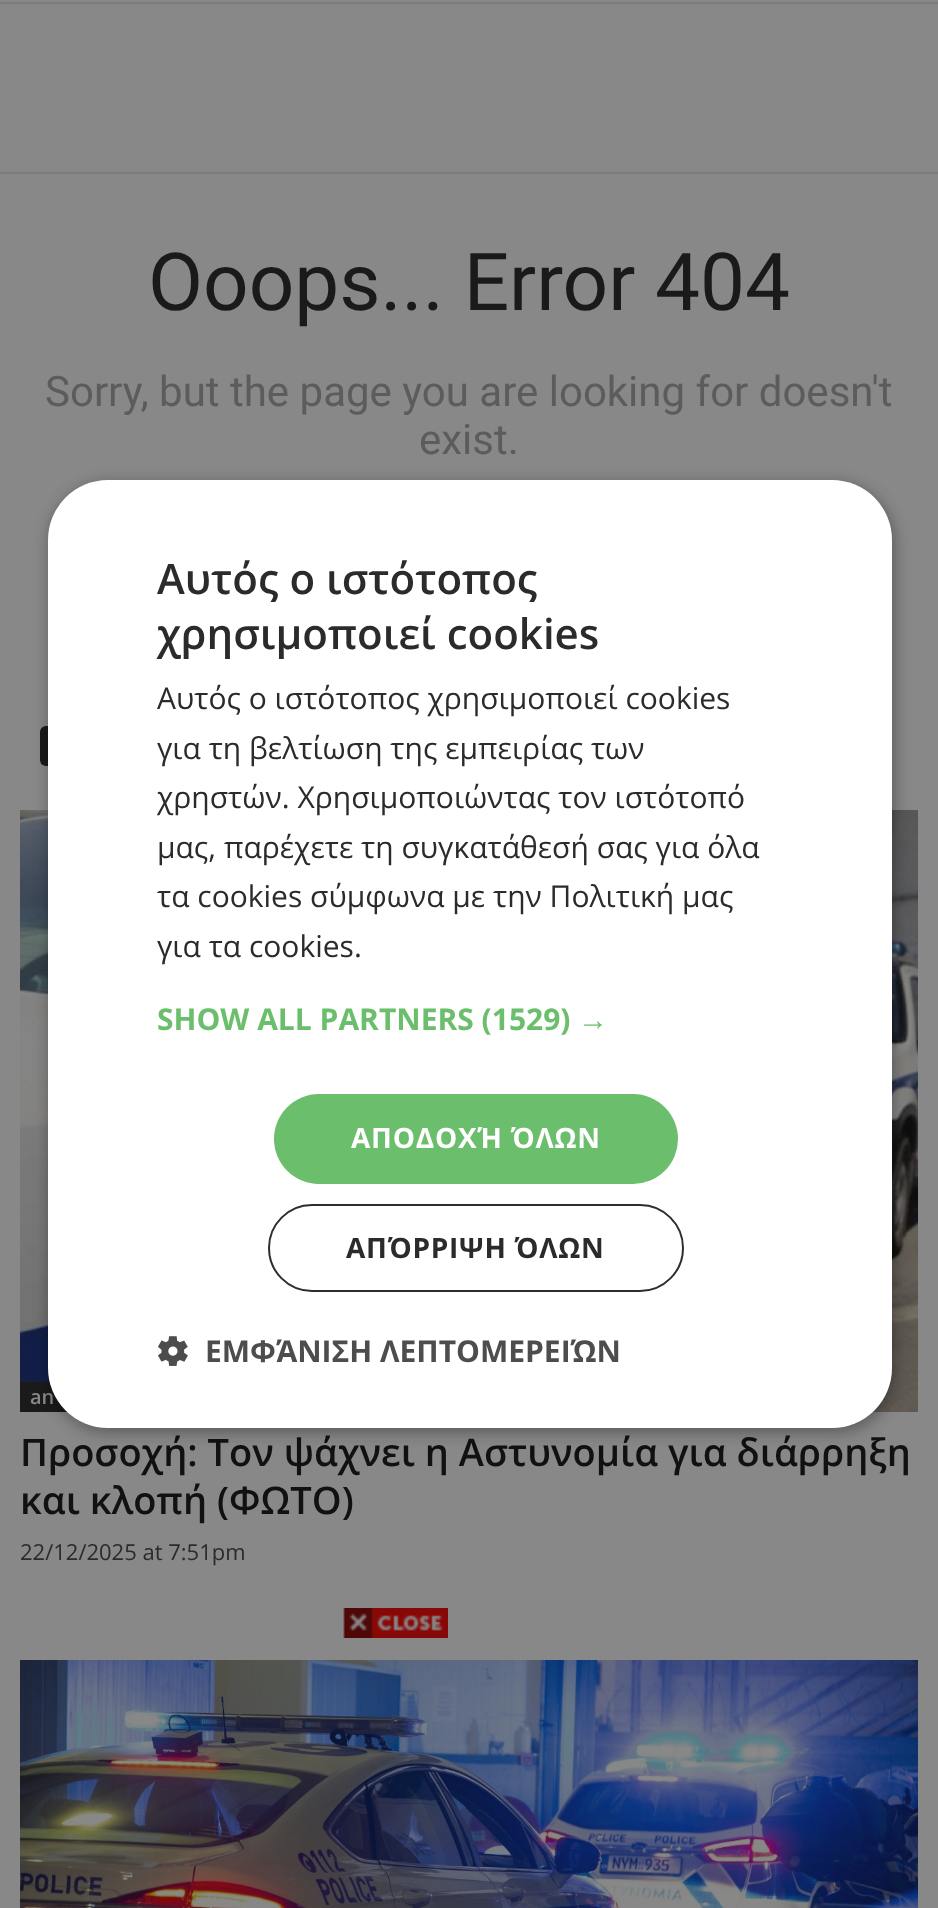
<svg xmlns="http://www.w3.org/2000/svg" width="938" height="1908">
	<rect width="100%" height="100%" fill="#888888" />
	<rect x="0" y="2" width="938" height="2" fill="#7C7C7C" />
	<rect x="0" y="172" width="938" height="2" fill="#7C7C7C" />
	<text x="148" y="310" font-family="Roboto" font-size="80" fill="#1A1A1A">Ooops... Error 404</text>
	<g font-family="Roboto" font-size="42" fill="#5C5C5C">
		<text x="45" y="406">Sorry, but the page you are looking for doesn't</text>
		<text x="419" y="454">exist.</text>
	</g>
	<rect x="40" y="726" width="266" height="40" rx="6" fill="#1A1A1A" />
	<image x="20" y="810" width="898" height="602" href="assets/img1.png" />
	<rect x="20" y="1382" width="48" height="30" fill="#1A1A1A" />
	<text x="30" y="1404" font-family="Open Sans" font-size="20" font-weight="600" fill="#888888">an</text>
	<g font-family="Open Sans" font-size="38" font-weight="600" fill="#111111">
		<text x="20" y="1466">Προσοχή: Τον ψάχνει η Αστυνομία για διάρρηξη</text>
		<text x="20" y="1514">και κλοπή (ΦΩΤΟ)</text>
	</g>
	<text x="20" y="1560" font-family="Open Sans" font-size="22" fill="#2B2B2B">22/12/2025 at 7:51pm</text>
	<image x="20" y="1660" width="898" height="248" href="assets/img2.png" />
	<rect x="50" y="484" width="844" height="948" rx="60" fill="#000000" fill-opacity="0.35" filter="blur(8px)" />
	<rect x="48" y="480" width="844" height="948" rx="60" fill="#FFFFFF" />
	<g font-family="Open Sans" font-size="42" font-weight="600" fill="#2B2B2B">
		<text x="157" y="594">Αυτός ο ιστότοπος</text>
		<text x="157" y="649">χρησιμοποιεί cookies</text>
	</g>
	<g font-family="Open Sans" font-size="30" fill="#2B2B2B">
		<text x="157" y="709">Αυτός ο ιστότοπος χρησιμοποιεί cookies</text>
		<text x="157" y="759">για τη βελτίωση της εμπειρίας των</text>
		<text x="157" y="808">χρηστών. Χρησιμοποιώντας τον ιστότοπό</text>
		<text x="157" y="858">μας, παρέχετε τη συγκατάθεσή σας για όλα</text>
		<text x="157" y="907">τα cookies σύμφωνα με την Πολιτική μας</text>
		<text x="157" y="957">για τα cookies.</text>
	</g>
	<text x="157" y="1030" font-family="Open Sans" font-size="30" font-weight="700" fill="#6BBE6B">SHOW ALL PARTNERS (1529)</text>
	<text x="578" y="1030" font-family="Liberation Sans" font-size="30" font-weight="700" fill="#6BBE6B">→</text>
	<rect x="274" y="1094" width="404" height="90" rx="45" fill="#6BBE6B" />
	<text x="351" y="1148" font-family="Open Sans" font-size="28" font-weight="700" letter-spacing="0.75" fill="#FFFFFF">ΑΠΟΔΟΧΉ ΌΛΩΝ</text>
	<rect x="269" y="1205" width="414" height="86" rx="43" fill="none" stroke="#2D2D2D" stroke-width="2" />
	<text x="346" y="1258" font-family="Open Sans" font-size="28" font-weight="700" letter-spacing="0.75" fill="#2B2B2B">ΑΠΌΡΡΙΨΗ ΌΛΩΝ</text>
	<image x="158" y="1336" width="30" height="30" href="assets/img3.png" />
	<text x="205" y="1362" font-family="Open Sans" font-size="30" font-weight="700" fill="#4D4D4D">ΕΜΦΆΝΙΣΗ ΛΕΠΤΟΜΕΡΕΙΏΝ</text>
	<image x="343" y="1608" width="105" height="30" href="assets/img4.png" />
</svg>
